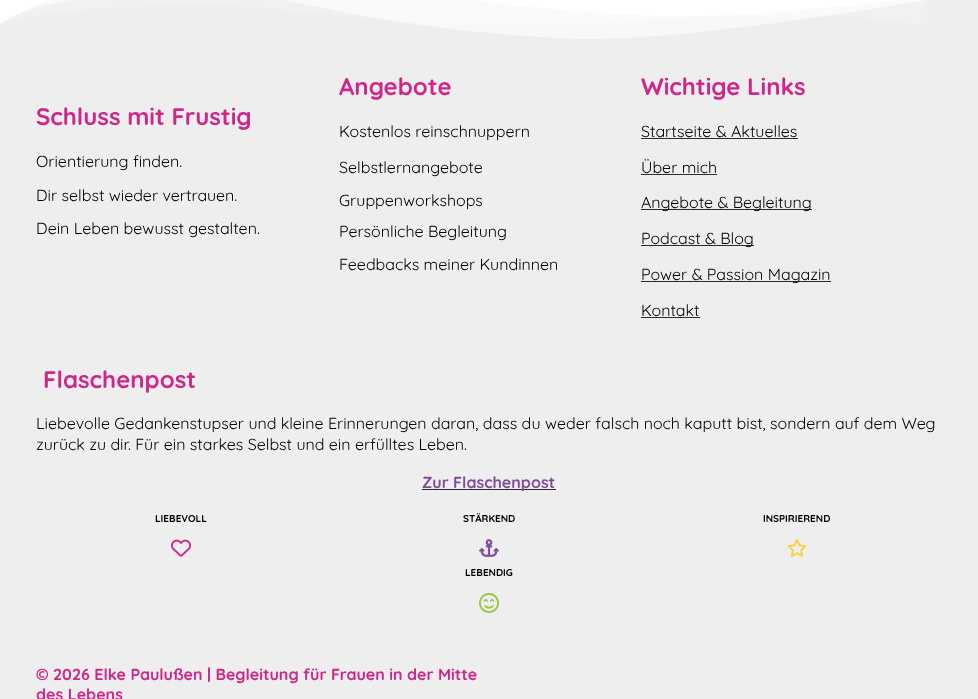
<svg xmlns="http://www.w3.org/2000/svg" width="978" height="699">
	<rect width="100%" height="100%" fill="#EEEEEE" />
	<image x="0" y="0" width="927" height="39" href="assets/img1.png" />
	<text x="36" y="125" font-family="Quicksand" font-size="24" font-weight="700" fill="#CF2789">Schluss mit Frustig</text>
	<g font-family="Quicksand" font-size="16" fill="#000000">
		<text x="36" y="167">Orientierung finden.</text>
		<text x="36" y="201">Dir selbst wieder vertrauen.</text>
		<text x="36" y="234">Dein Leben bewusst gestalten.</text>
	</g>
	<text x="339" y="95" font-family="Quicksand" font-size="24" font-weight="700" fill="#CF2789">Angebote</text>
	<g font-family="Quicksand" font-size="16" fill="#000000">
		<text x="339" y="137">Kostenlos reinschnuppern</text>
		<text x="339" y="173">Selbstlernangebote</text>
		<text x="339" y="206">Gruppenworkshops</text>
		<text x="339" y="237">Persönliche Begleitung</text>
		<text x="339" y="270">Feedbacks meiner Kundinnen</text>
	</g>
	<text x="641" y="95" font-family="Quicksand" font-size="24" font-weight="700" fill="#CF2789">Wichtige Links</text>
	<text x="641" y="137" font-family="Quicksand" font-size="16" fill="#000000">Startseite &amp; Aktuelles</text>
	<rect x="641" y="138" width="157" height="1" fill="#2C2C2C" />
	<text x="641" y="173" font-family="Quicksand" font-size="16" fill="#000000">Über mich</text>
	<rect x="641" y="174" width="76" height="1" fill="#2C2C2C" />
	<rect x="641" y="209" width="171" height="1" fill="#2C2C2C" />
	<text x="641" y="208" font-family="Quicksand" font-size="16" fill="#000000">Angebote &amp; Begleitung</text>
	<rect x="641" y="245" width="113" height="1" fill="#2C2C2C" />
	<text x="641" y="244" font-family="Quicksand" font-size="16" fill="#000000">Podcast &amp; Blog</text>
	<rect x="641" y="281" width="190" height="1" fill="#2C2C2C" />
	<g font-family="Quicksand" font-size="16" fill="#000000">
		<text x="641" y="280">Power &amp; Passion Magazin</text>
		<text x="641" y="316">Kontakt</text>
	</g>
	<rect x="641" y="317" width="59" height="1" fill="#2C2C2C" />
	<text x="43" y="388" font-family="Quicksand" font-size="24" font-weight="700" fill="#CF2789">Flaschenpost</text>
	<g font-family="Quicksand" font-size="16" fill="#000000">
		<text x="36" y="429">Liebevolle Gedankenstupser und kleine Erinnerungen daran, dass du weder falsch noch kaputt bist, sondern auf dem Weg</text>
		<text x="36" y="450">zurück zu dir. Für ein starkes Selbst und ein erfülltes Leben.</text>
	</g>
	<rect x="422" y="489" width="134" height="1" fill="#2C2C2C" />
	<text x="422" y="488" font-family="Quicksand" font-size="16" font-weight="700" fill="#824D9A">Zur Flaschenpost</text>
	<text x="155" y="522" font-family="Quicksand" font-size="10" font-weight="700" fill="#000000">LIEBEVOLL</text>
	<image x="171" y="539" width="20" height="18" href="assets/img2.png" />
	<text x="463" y="522" font-family="Quicksand" font-size="10" font-weight="700" fill="#000000">STÄRKEND</text>
	<image x="479" y="539" width="20" height="18" href="assets/img3.png" />
	<text x="763" y="522" font-family="Quicksand" font-size="10" font-weight="700" fill="#000000">INSPIRIEREND</text>
	<image x="787" y="539" width="20" height="18" href="assets/img4.png" />
	<text x="465" y="576" font-family="Quicksand" font-size="10" font-weight="700" fill="#000000">LEBENDIG</text>
	<image x="479" y="593" width="20" height="20" href="assets/img5.png" />
	<g font-family="Quicksand" font-size="16" font-weight="700" fill="#CF2789">
		<text x="36" y="680">© 2026 Elke Paulußen | Begleitung für Frauen in der Mitte</text>
		<text x="36" y="700">des Lebens</text>
	</g>
</svg>
